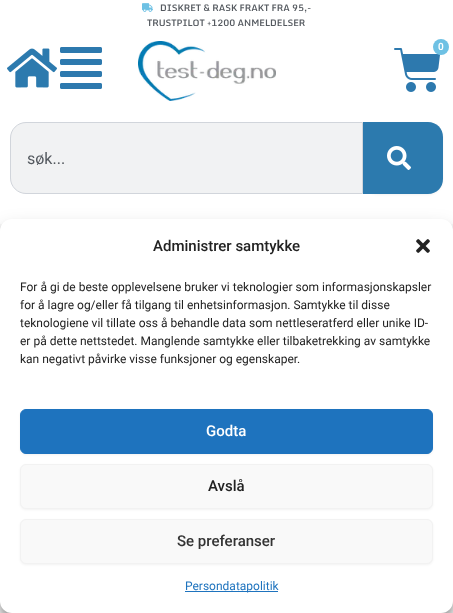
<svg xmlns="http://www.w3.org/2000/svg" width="453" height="613">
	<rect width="100%" height="100%" fill="#FFFFFF" />
	<image x="142" y="3" width="11" height="9" href="assets/img1.png" />
	<g font-family="Monda" font-size="9" font-weight="600" fill="#54595F">
		<text x="160" y="11">DISKRET &amp; RASK FRAKT FRA 95,-</text>
		<text x="147" y="26">TRUSTPILOT +1200 ANMELDELSER</text>
	</g>
	<image x="7" y="48" width="50" height="40" href="assets/img2.png" />
	<image x="60" y="47" width="42" height="42" href="assets/img3.png" />
	<image x="138" y="41" width="138" height="60" href="assets/img4.png" />
	<image x="394" y="48" width="46" height="44" href="assets/img5.png" />
	<circle cx="441" cy="47" r="8" fill="#6EC1E4" />
	<text x="438" y="50" font-family="Roboto" font-size="10" font-weight="600" fill="#FFFFFF">0</text>
	<rect x="363" y="123" width="80" height="72" rx="15" fill="#000000" fill-opacity="0.05" filter="blur(1px)" />
	<path d="M26 122.5H362.5V193.5H26C17.5 193.5 10.5 186.5 10.5 178V138C10.5 129.5 17.5 122.5 26 122.5Z" fill="#F1F2F3" stroke="#D1D5DB" />
	<text x="27" y="164" font-family="Roboto" font-size="16" fill="#54595F">søk...</text>
	<path d="M363 122H428C436.5 122 443 128.5 443 137V179C443 187.5 436.5 194 428 194H363Z" fill="#2C7AAE" />
	<image x="387" y="146" width="24" height="24" href="assets/img6.png" />
	<rect x="0" y="224" width="453" height="389" fill="#F7F7F7" />
	<rect x="0" y="225" width="453" height="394" rx="12" fill="#000000" fill-opacity="0.23" filter="blur(3px)" />
	<rect x="0" y="229" width="453" height="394" rx="12" fill="#000000" fill-opacity="0.19" filter="blur(10px)" />
	<rect x="0" y="219" width="453" height="394" rx="12" fill="#FFFFFF" />
	<text x="153" y="251" font-family="Roboto" font-size="15" font-weight="500" fill="#222222">Administrer samtykke</text>
	<image x="416" y="239" width="14" height="14" href="assets/img7.png" />
	<g font-family="Roboto" font-size="12" fill="#222222">
		<text x="20" y="291">For å gi de beste opplevelsene bruker vi teknologier som informasjonskapsler</text>
		<text x="20" y="309">for å lagre og/eller få tilgang til enhetsinformasjon. Samtykke til disse</text>
		<text x="20" y="327">teknologiene vil tillate oss å behandle data som nettleseratferd eller unike ID-</text>
		<text x="20" y="345">er på dette nettstedet. Manglende samtykke eller tilbaketrekking av samtykke</text>
		<text x="20" y="363">kan negativt påvirke visse funksjoner og egenskaper.</text>
	</g>
	<rect x="20" y="410" width="413" height="45" rx="6" fill="#000000" fill-opacity="0.05" filter="blur(1px)" />
	<rect x="20.5" y="409.5" width="412" height="44" rx="5.5" fill="#1E73BE" stroke="#1E73BE" />
	<text x="206" y="436" font-family="Roboto" font-size="15" font-weight="500" fill="#FFFFFF">Godta</text>
	<rect x="20" y="465" width="413" height="45" rx="6" fill="#000000" fill-opacity="0.05" filter="blur(1px)" />
	<rect x="20.5" y="464.5" width="412" height="44" rx="5.5" fill="#F9F9F9" stroke="#F2F2F2" />
	<text x="208" y="491" font-family="Roboto" font-size="15" font-weight="500" fill="#222222">Avslå</text>
	<rect x="20" y="520" width="413" height="45" rx="6" fill="#000000" fill-opacity="0.05" filter="blur(1px)" />
	<rect x="20.5" y="519.5" width="412" height="44" rx="5.5" fill="#F9F9F9" stroke="#F2F2F2" />
	<text x="177" y="546" font-family="Roboto" font-size="15" font-weight="500" fill="#333333">Se preferanser</text>
	<rect x="185" y="591" width="93" height="1" fill="#1E73BE" />
	<text x="185" y="590" font-family="Roboto" font-size="12" fill="#1E73BE">Persondatapolitik</text>
</svg>
